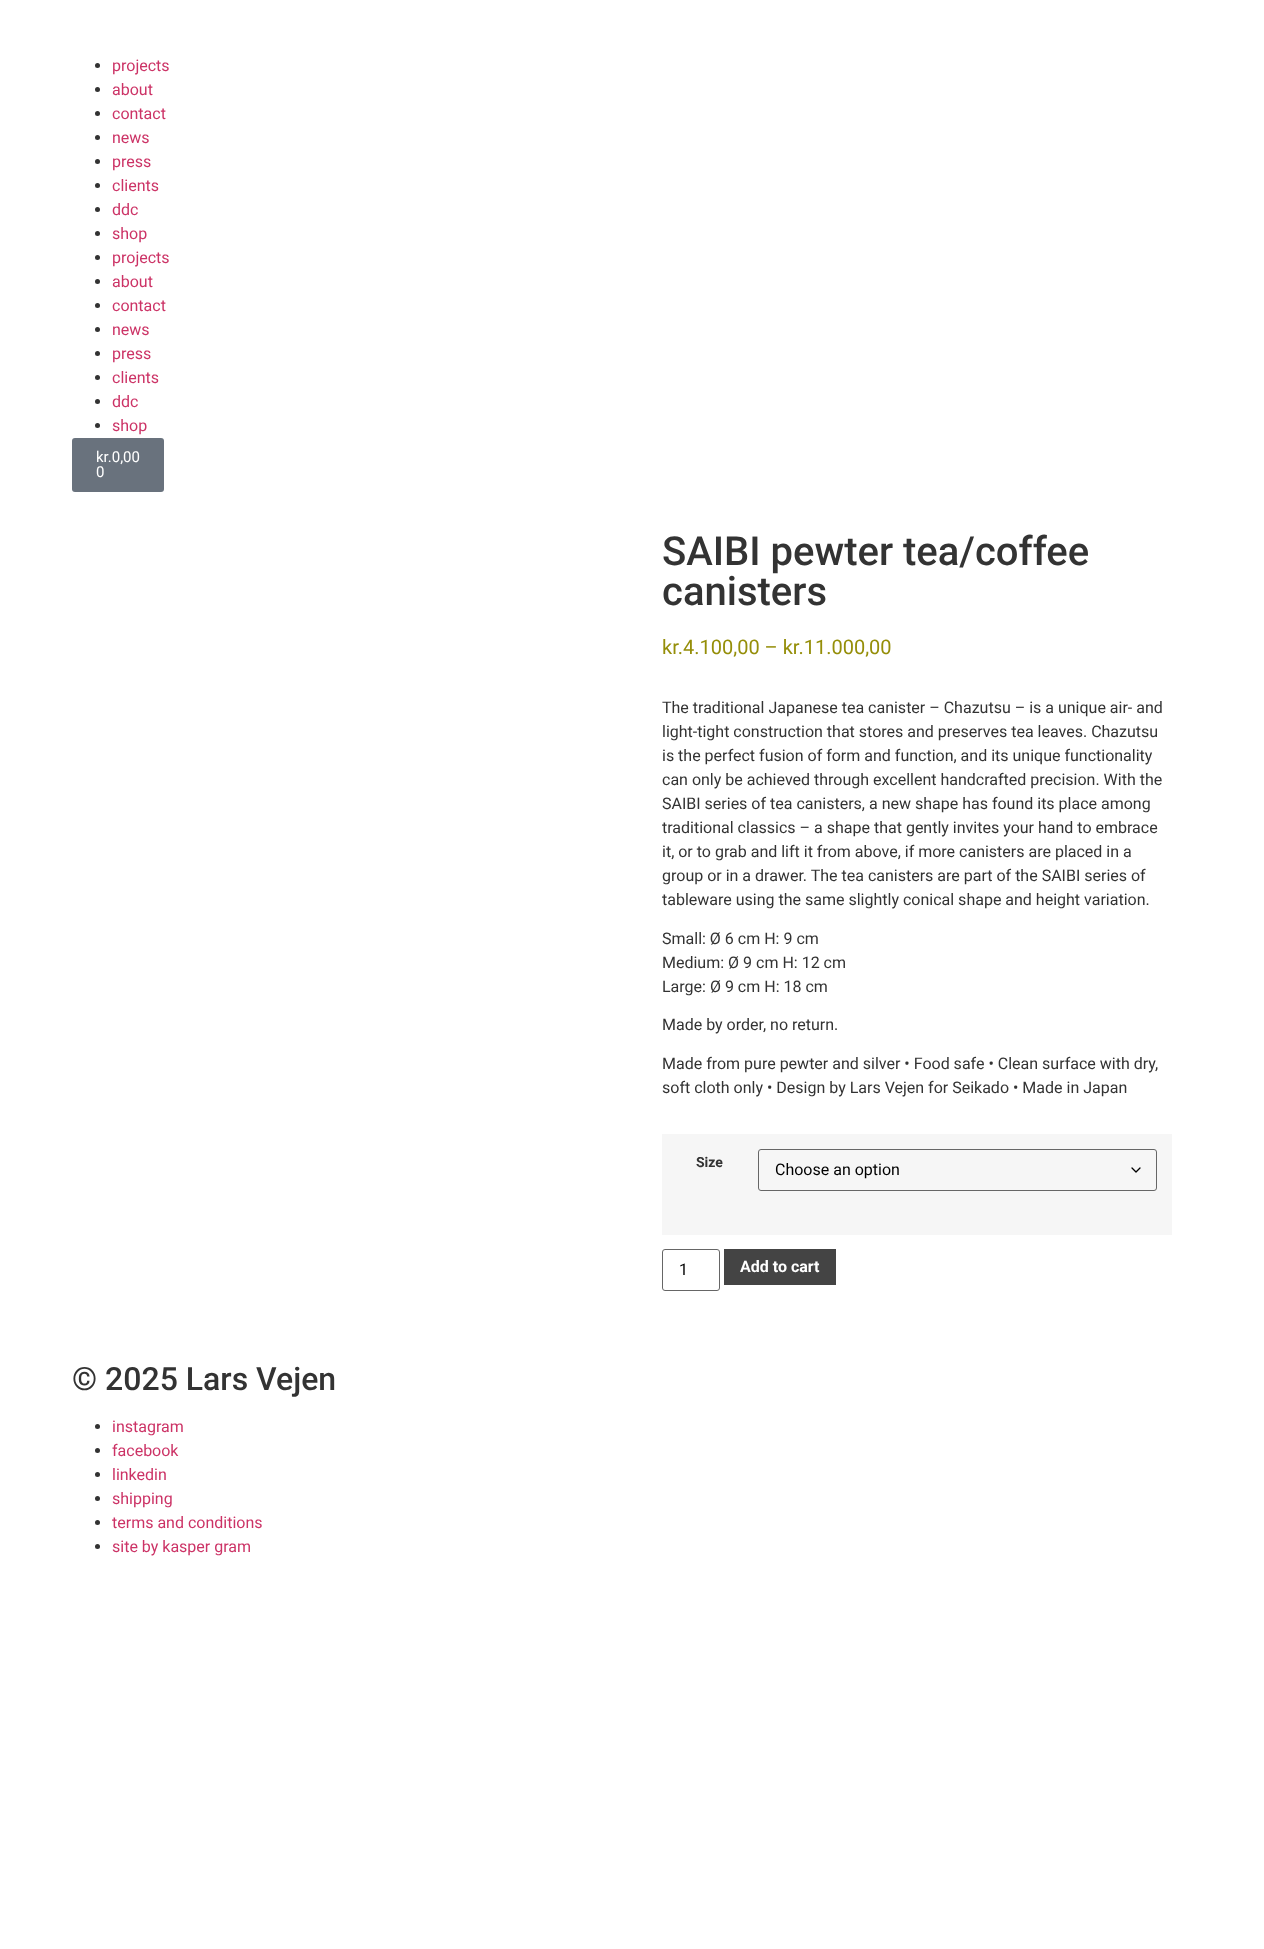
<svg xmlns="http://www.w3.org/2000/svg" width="1264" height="1949">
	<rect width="100%" height="100%" fill="#FFFFFF" />
	<circle cx="97.5" cy="65.5" r="2.5" fill="#333333" />
	<text x="112" y="71" font-family="Roboto" font-size="16" fill="#CC3366">projects</text>
	<circle cx="97.5" cy="89.5" r="2.5" fill="#333333" />
	<text x="112" y="95" font-family="Roboto" font-size="16" fill="#CC3366">about</text>
	<circle cx="97.5" cy="113.5" r="2.5" fill="#333333" />
	<text x="112" y="119" font-family="Roboto" font-size="16" fill="#CC3366">contact</text>
	<circle cx="97.5" cy="137.5" r="2.5" fill="#333333" />
	<text x="112" y="143" font-family="Roboto" font-size="16" fill="#CC3366">news</text>
	<circle cx="97.5" cy="161.5" r="2.5" fill="#333333" />
	<text x="112" y="167" font-family="Roboto" font-size="16" fill="#CC3366">press</text>
	<circle cx="97.5" cy="185.5" r="2.5" fill="#333333" />
	<text x="112" y="191" font-family="Roboto" font-size="16" fill="#CC3366">clients</text>
	<circle cx="97.5" cy="209.5" r="2.5" fill="#333333" />
	<text x="112" y="215" font-family="Roboto" font-size="16" fill="#CC3366">ddc</text>
	<circle cx="97.5" cy="233.5" r="2.5" fill="#333333" />
	<text x="112" y="239" font-family="Roboto" font-size="16" fill="#CC3366">shop</text>
	<circle cx="97.5" cy="257.5" r="2.5" fill="#333333" />
	<text x="112" y="263" font-family="Roboto" font-size="16" fill="#CC3366">projects</text>
	<circle cx="97.5" cy="281.5" r="2.5" fill="#333333" />
	<text x="112" y="287" font-family="Roboto" font-size="16" fill="#CC3366">about</text>
	<circle cx="97.5" cy="305.5" r="2.5" fill="#333333" />
	<text x="112" y="311" font-family="Roboto" font-size="16" fill="#CC3366">contact</text>
	<circle cx="97.5" cy="329.5" r="2.5" fill="#333333" />
	<text x="112" y="335" font-family="Roboto" font-size="16" fill="#CC3366">news</text>
	<circle cx="97.5" cy="353.5" r="2.5" fill="#333333" />
	<text x="112" y="359" font-family="Roboto" font-size="16" fill="#CC3366">press</text>
	<circle cx="97.5" cy="377.5" r="2.5" fill="#333333" />
	<text x="112" y="383" font-family="Roboto" font-size="16" fill="#CC3366">clients</text>
	<circle cx="97.5" cy="401.5" r="2.5" fill="#333333" />
	<text x="112" y="407" font-family="Roboto" font-size="16" fill="#CC3366">ddc</text>
	<circle cx="97.5" cy="425.5" r="2.5" fill="#333333" />
	<text x="112" y="431" font-family="Roboto" font-size="16" fill="#CC3366">shop</text>
	<rect x="72" y="438" width="92" height="54" rx="3" fill="#69727D" />
	<g font-family="Roboto" font-size="15" fill="#FFFFFF">
		<text x="96" y="462">kr.0,00</text>
		<text x="96" y="477">0</text>
	</g>
	<g font-family="Roboto" font-size="40" font-weight="500" fill="#333333">
		<text x="662" y="565">SAIBI pewter tea/coffee</text>
		<text x="662" y="605">canisters</text>
	</g>
	<text x="662" y="654" font-family="Roboto" font-size="20" fill="#958E09">kr.4.100,00 – kr.11.000,00</text>
	<g font-family="Roboto" font-size="16" fill="#333333">
		<text x="662" y="713">The traditional Japanese tea canister – Chazutsu – is a unique air- and</text>
		<text x="662" y="737">light-tight construction that stores and preserves tea leaves. Chazutsu</text>
		<text x="662" y="761">is the perfect fusion of form and function, and its unique functionality</text>
		<text x="662" y="785">can only be achieved through excellent handcrafted precision. With the</text>
		<text x="662" y="809">SAIBI series of tea canisters, a new shape has found its place among</text>
		<text x="662" y="833">traditional classics – a shape that gently invites your hand to embrace</text>
		<text x="662" y="857">it, or to grab and lift it from above, if more canisters are placed in a</text>
		<text x="662" y="881">group or in a drawer. The tea canisters are part of the SAIBI series of</text>
		<text x="662" y="905">tableware using the same slightly conical shape and height variation.</text>
		<text x="662" y="944">Small: Ø 6 cm H: 9 cm</text>
		<text x="662" y="968">Medium: Ø 9 cm H: 12 cm</text>
		<text x="662" y="992">Large: Ø 9 cm H: 18 cm</text>
		<text x="662" y="1030">Made by order, no return.</text>
		<text x="662" y="1069">Made from pure pewter and silver • Food safe • Clean surface with dry,</text>
		<text x="662" y="1093">soft cloth only • Design by Lars Vejen for Seikado • Made in Japan</text>
	</g>
	<rect x="662" y="1134" width="510" height="101" fill="#F6F6F6" />
	<text x="696" y="1167" font-family="Roboto" font-size="14" font-weight="700" fill="#333333">Size</text>
	<path d="M1132 1168L1136 1172L1140 1168" fill="none" stroke="#000000" stroke-width="1.3" stroke-linecap="round" stroke-linejoin="round" />
	<rect x="758.5" y="1149.5" width="398" height="41" rx="2.5" fill="none" stroke="#666666" />
	<text x="775" y="1175" font-family="Roboto" font-size="16" fill="#000000">Choose an option</text>
	<rect x="662.5" y="1249.5" width="57" height="41" rx="2.5" fill="none" stroke="#666666" />
	<text x="679" y="1275" font-family="Roboto" font-size="16" fill="#000000">1</text>
	<rect x="724" y="1249" width="112" height="36" fill="#444444" />
	<text x="740" y="1272" font-family="Roboto" font-size="16" font-weight="700" fill="#FFFFFF">Add to cart</text>
	<text x="72" y="1390" font-family="Roboto" font-size="32" font-weight="500" fill="#333333">© 2025 Lars Vejen</text>
	<circle cx="97.5" cy="1426.5" r="2.5" fill="#333333" />
	<text x="112" y="1432" font-family="Roboto" font-size="16" fill="#CC3366">instagram</text>
	<circle cx="97.5" cy="1450.5" r="2.5" fill="#333333" />
	<text x="112" y="1456" font-family="Roboto" font-size="16" fill="#CC3366">facebook</text>
	<circle cx="97.5" cy="1474.5" r="2.5" fill="#333333" />
	<text x="112" y="1480" font-family="Roboto" font-size="16" fill="#CC3366">linkedin</text>
	<circle cx="97.5" cy="1498.5" r="2.5" fill="#333333" />
	<text x="112" y="1504" font-family="Roboto" font-size="16" fill="#CC3366">shipping</text>
	<circle cx="97.5" cy="1522.5" r="2.5" fill="#333333" />
	<text x="112" y="1528" font-family="Roboto" font-size="16" fill="#CC3366">terms and conditions</text>
	<circle cx="97.5" cy="1546.5" r="2.5" fill="#333333" />
	<text x="112" y="1552" font-family="Roboto" font-size="16" fill="#CC3366">site by kasper gram</text>
</svg>
